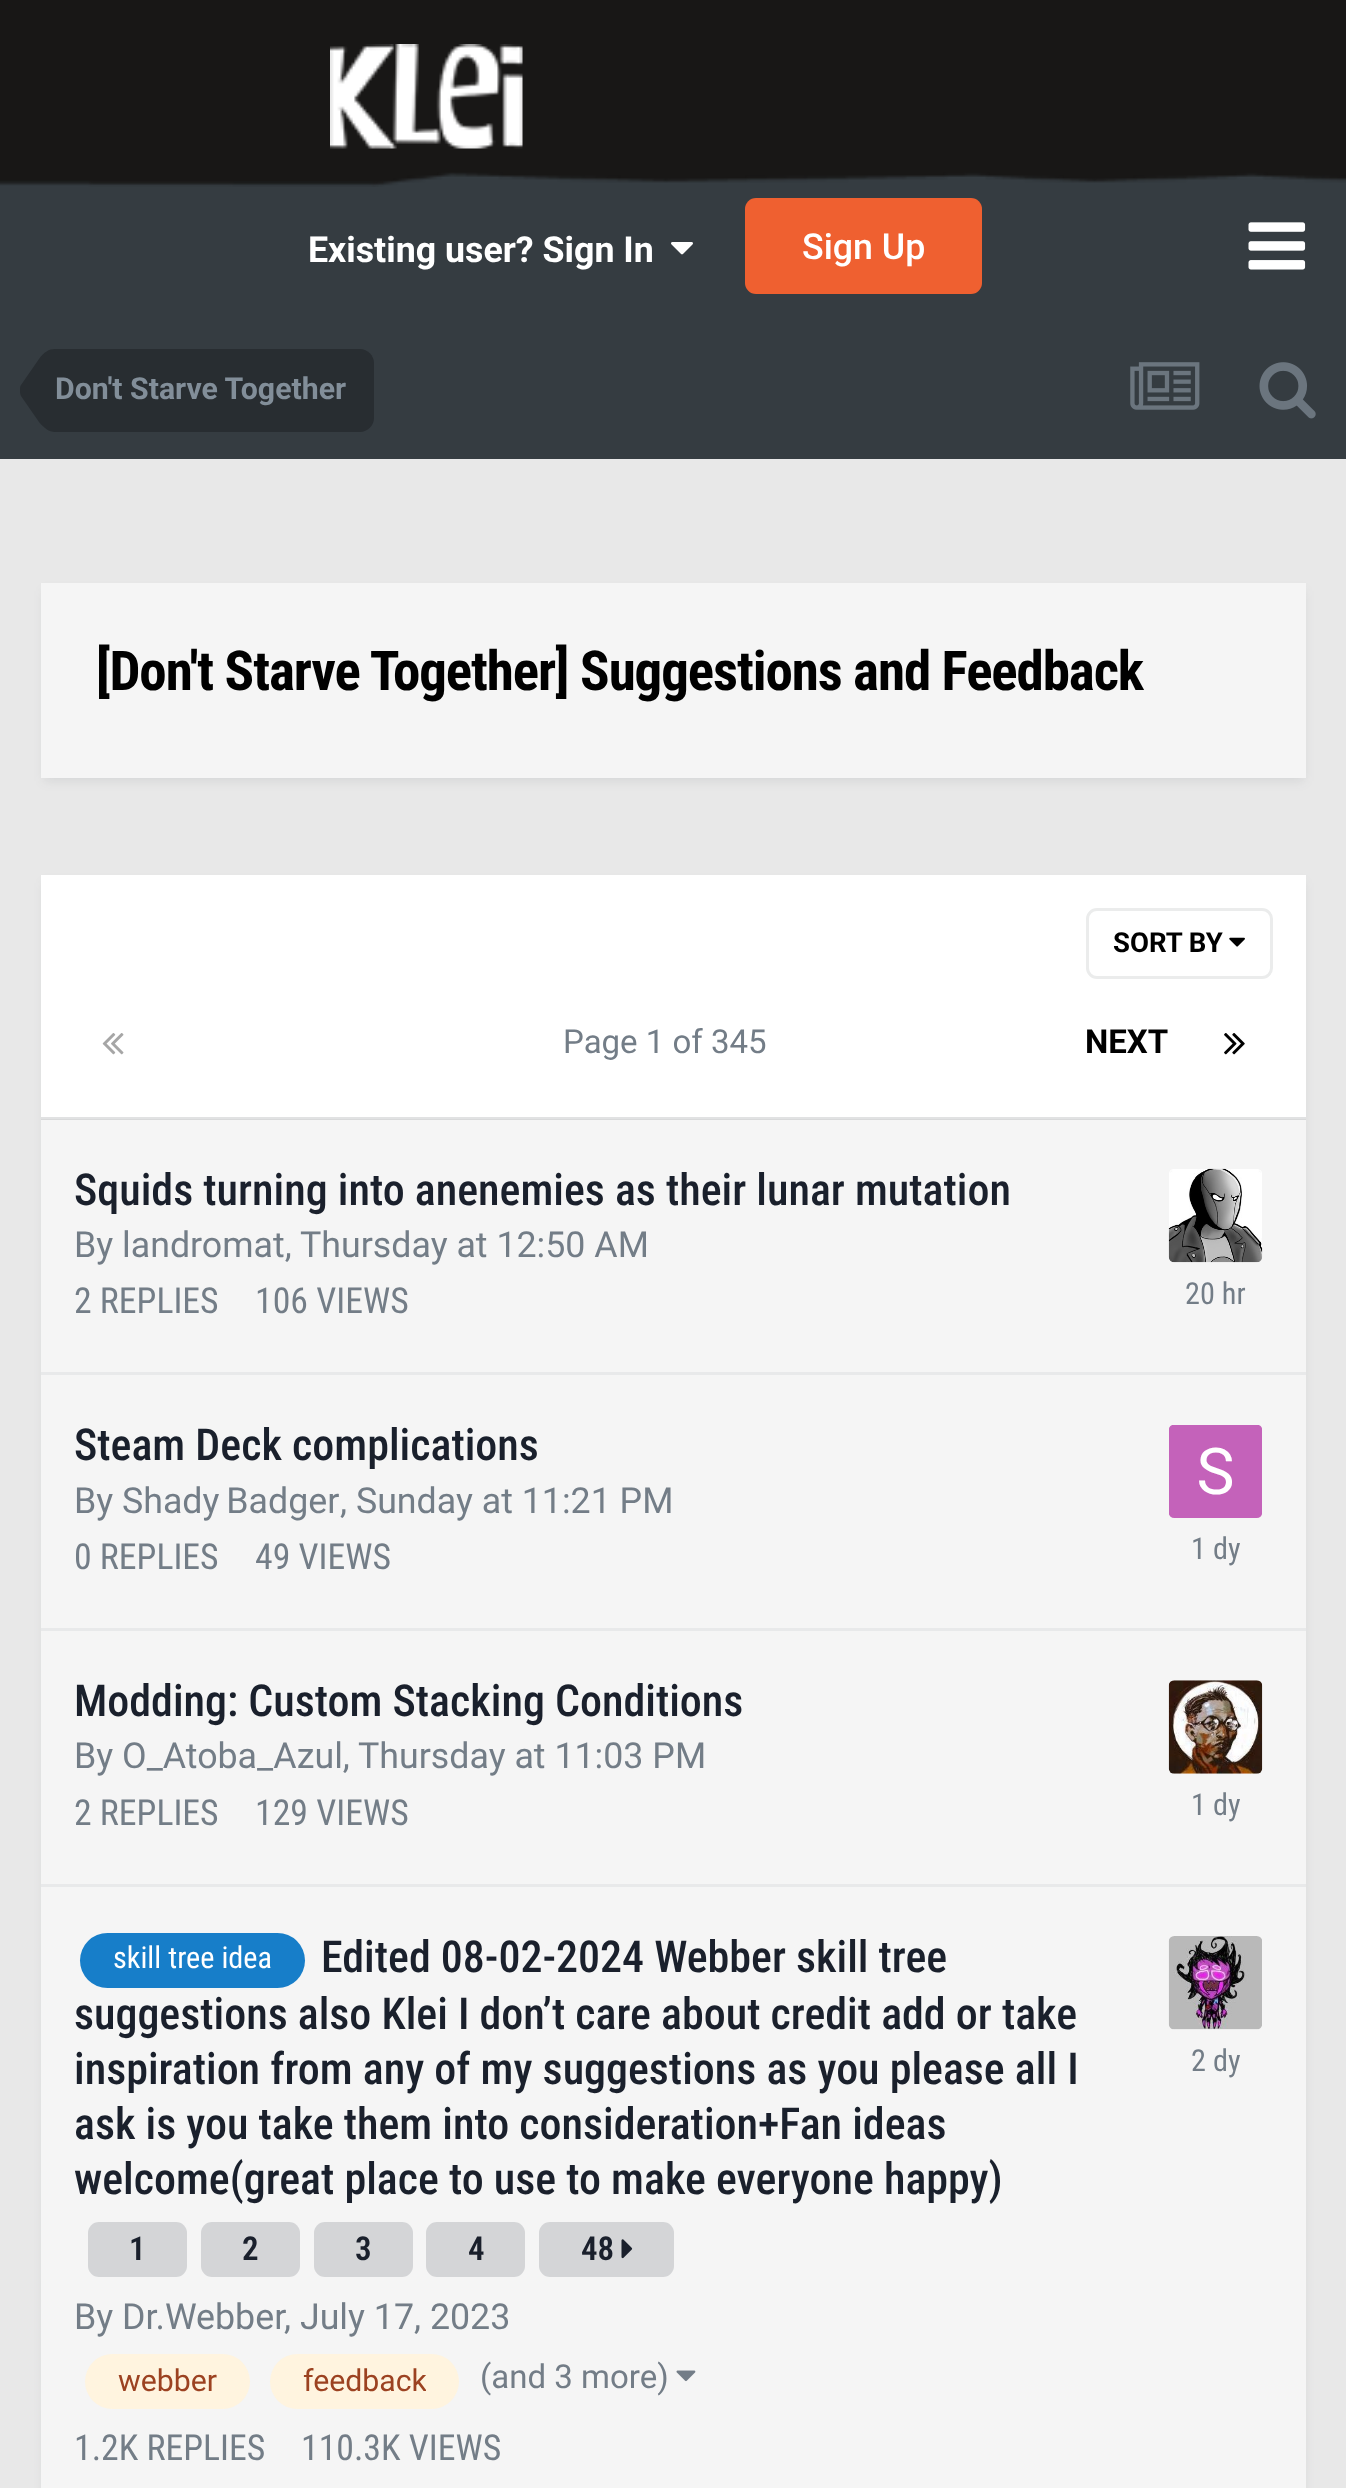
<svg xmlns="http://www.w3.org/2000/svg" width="1346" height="2488">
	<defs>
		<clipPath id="clip1"><rect x="303" y="2354" width="123" height="55" /></clipPath>
	</defs>
	<rect width="100%" height="100%" fill="#353C41" />
	<rect x="0" y="0" width="1346" height="171" fill="#181716" />
	<image x="330" y="44" width="193" height="105" href="assets/img1.png" />
	<image x="0" y="171" width="1346" height="16" href="assets/img2.png" />
	<text x="308" y="262" font-family="Roboto" font-size="35.75" font-weight="700" fill="#FFFFFF">Existing user? Sign In</text>
	<image x="671" y="242" width="22" height="13" href="assets/img3.png" />
	<rect x="745" y="198" width="237" height="96" rx="11" fill="#EF6030" />
	<text x="802" y="259" font-family="Roboto" font-size="35.75" font-weight="500" fill="#FFFFFF">Sign Up</text>
	<image x="1248" y="222" width="58" height="48" href="assets/img4.png" />
	<path d="M55 349H360C367.5 349 374 355.5 374 363V418C374 425.5 367.5 432 360 432H55Z" fill="#282D31" />
	<path d="M55 432C49 432 44 428 39 422L21 396C20 394 20 392 20 390H55Z" fill="#282D31" />
	<path d="M55 349V390H20C20 388 20 386 21 385L39 359C44 352 49 349 55 349Z" fill="#282D31" />
	<text x="55" y="399" font-family="Roboto" font-size="30.25" font-weight="700" fill="#828E99">Don't Starve Together</text>
	<image x="1130" y="362" width="70" height="48" href="assets/img5.png" />
	<image x="1259" y="362" width="57" height="57" href="assets/img6.png" />
	<rect x="0" y="459" width="1346" height="2029" fill="#E8E8E8" />
	<rect x="44" y="591" width="1260" height="190" fill="#2D3748" fill-opacity="0.1" filter="blur(5.5px)" />
	<rect x="41" y="583" width="1265" height="195" fill="#F5F5F5" />
	<text x="96" y="690" font-family="Roboto Condensed" font-size="55" font-weight="700" letter-spacing="-1.1" fill="#000000">[Don't Starve Together] Suggestions and Feedback</text>
	<rect x="44" y="883" width="1260" height="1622" fill="#2D3748" fill-opacity="0.1" filter="blur(5.5px)" />
	<rect x="41" y="1119" width="1265" height="1369" fill="#F5F5F5" />
	<rect x="41" y="875" width="1265" height="244" fill="#FFFFFF" />
	<rect x="41" y="1117" width="1265" height="3" fill="#353C41" fill-opacity="0.15" />
	<image x="1229" y="937" width="16" height="10" href="assets/img7.png" />
	<rect x="1087.5" y="909.5" width="184" height="68" rx="9.5" fill="none" stroke="#EBECEC" stroke-width="3" />
	<text x="1113" y="952" font-family="Roboto" font-size="27.5" font-weight="700" fill="#000000">SORT BY</text>
	<image x="102" y="1033" width="22" height="22" href="assets/img8.png" />
	<text x="563" y="1053" font-family="Roboto" font-size="33" fill="#737D87">Page 1 of 345</text>
	<text x="1085" y="1053" font-family="Roboto" font-size="33" font-weight="700" fill="#000000">NEXT</text>
	<image x="1224" y="1033" width="21" height="22" href="assets/img9.png" />
	<rect x="41" y="1372" width="1265" height="3" fill="#E8E9EA" />
	<text x="74" y="1205" font-family="Roboto Condensed" font-size="44" font-weight="500" fill="#1A202C">Squids turning into anenemies as their lunar mutation</text>
	<g font-family="Roboto" font-size="35.75" fill="#737D87">
		<text x="74" y="1257">By landromat,</text>
		<text x="300" y="1257">Thursday at 12:50 AM</text>
	</g>
	<g font-family="Roboto Condensed" font-size="35.75" fill="#737D87">
		<text x="74" y="1313">2 REPLIES</text>
		<text x="255" y="1313">106 VIEWS</text>
	</g>
	<image x="1168" y="1168" width="95" height="95" href="assets/img10.png" />
	<text x="1185" y="1304" font-family="Roboto Condensed" font-size="30.25" fill="#737D87">20 hr</text>
	<rect x="41" y="1628" width="1265" height="3" fill="#E8E9EA" />
	<text x="74" y="1460" font-family="Roboto Condensed" font-size="44" font-weight="500" fill="#1A202C">Steam Deck complications</text>
	<g font-family="Roboto" font-size="35.75" fill="#737D87">
		<text x="74" y="1513">By</text>
		<text x="122" y="1513" word-spacing="-2">Shady Badger</text>
		<text x="340" y="1513">, Sunday at 11:21 PM</text>
	</g>
	<g font-family="Roboto Condensed" font-size="35.75" fill="#737D87">
		<text x="74" y="1569">0 REPLIES</text>
		<text x="255" y="1569">49 VIEWS</text>
	</g>
	<image x="1169" y="1425" width="93" height="93" href="assets/img11.png" />
	<text x="1191" y="1559" font-family="Roboto Condensed" font-size="30.25" fill="#737D87">1 dy</text>
	<rect x="41" y="1884" width="1265" height="3" fill="#E8E9EA" />
	<text x="74" y="1716" font-family="Roboto Condensed" font-size="44" font-weight="500" fill="#1A202C">Modding: Custom Stacking Conditions</text>
	<g font-family="Roboto" font-size="35.75" fill="#737D87">
		<text x="74" y="1768">By O_Atoba_Azul,</text>
		<text x="358" y="1768">Thursday at 11:03 PM</text>
	</g>
	<g font-family="Roboto Condensed" font-size="35.75" fill="#737D87">
		<text x="74" y="1825">2 REPLIES</text>
		<text x="255" y="1825">129 VIEWS</text>
	</g>
	<rect x="1169" y="1680" width="93" height="94" rx="6" fill="#FFFFFF" />
	<image x="1168" y="1680" width="95" height="94" href="assets/img12.png" />
	<text x="1191" y="1815" font-family="Roboto Condensed" font-size="30.25" fill="#737D87">1 dy</text>
	<rect x="80" y="1933" width="225" height="55" rx="27.5" fill="#177EC9" />
	<text x="113" y="1968" font-family="Roboto Condensed" font-size="30.25" fill="#FFFFFF">skill tree idea</text>
	<g font-family="Roboto Condensed" font-size="44" font-weight="500" fill="#1A202C">
		<text x="321" y="1972">Edited 08-02-2024 Webber skill tree</text>
		<text x="74" y="2029">suggestions also Klei I don’t care about credit add or take</text>
		<text x="74" y="2084">inspiration from any of my suggestions as you please all I</text>
		<text x="74" y="2139">ask is you take them into consideration+Fan ideas</text>
		<text x="74" y="2194">welcome(great place to use to make everyone happy)</text>
	</g>
	<text x="129" y="2260" font-family="Roboto Condensed" font-size="33" font-weight="600" fill="#1A202C">1</text>
	<rect x="88" y="2222" width="99" height="55" rx="11" fill="#1A202C" fill-opacity="0.15" />
	<text x="242" y="2260" font-family="Roboto Condensed" font-size="33" font-weight="600" fill="#1A202C">2</text>
	<rect x="201" y="2222" width="99" height="55" rx="11" fill="#1A202C" fill-opacity="0.15" />
	<text x="355" y="2260" font-family="Roboto Condensed" font-size="33" font-weight="600" fill="#1A202C">3</text>
	<rect x="314" y="2222" width="99" height="55" rx="11" fill="#1A202C" fill-opacity="0.15" />
	<text x="468" y="2260" font-family="Roboto Condensed" font-size="33" font-weight="600" fill="#1A202C">4</text>
	<rect x="426" y="2222" width="99" height="55" rx="11" fill="#1A202C" fill-opacity="0.15" />
	<text x="581" y="2260" font-family="Roboto Condensed" font-size="33" font-weight="600" fill="#1A202C">48</text>
	<image x="621" y="2239" width="12" height="20" href="assets/img13.png" />
	<rect x="539" y="2222" width="135" height="55" rx="11" fill="#1A202C" fill-opacity="0.15" />
	<g font-family="Roboto" font-size="35.75" fill="#737D87">
		<text x="74" y="2329">By Dr.Webber</text>
		<text x="284" y="2329">, July 17, 2023</text>
	</g>
	<rect x="85" y="2354" width="165" height="55" rx="27.5" fill="#FFF4DF" />
	<text x="118" y="2391" font-family="Roboto" font-size="30.25" fill="#9C4221">webber</text>
	<rect x="270" y="2354" width="189" height="55" rx="27.5" fill="#FFF4DF" />
	<g clip-path="url(#clip1)">
		<text x="303" y="2391" font-family="Roboto" font-size="30.25" fill="#9C4221">feedback</text>
	</g>
	<text x="480" y="2388" font-family="Roboto" font-size="33" fill="#737D87">(and 3 more)</text>
	<image x="676" y="2370" width="20" height="12" href="assets/img14.png" />
	<rect x="1169" y="1936" width="93" height="94" rx="6" fill="#FFFFFF" />
	<image x="1168" y="1936" width="94" height="94" href="assets/img15.png" />
	<text x="1191" y="2071" font-family="Roboto Condensed" font-size="30.25" fill="#737D87">2 dy</text>
	<g font-family="Roboto Condensed" font-size="35.75" fill="#737D87">
		<text x="74" y="2460">1.2K REPLIES</text>
		<text x="301" y="2460">110.3K VIEWS</text>
	</g>
</svg>
